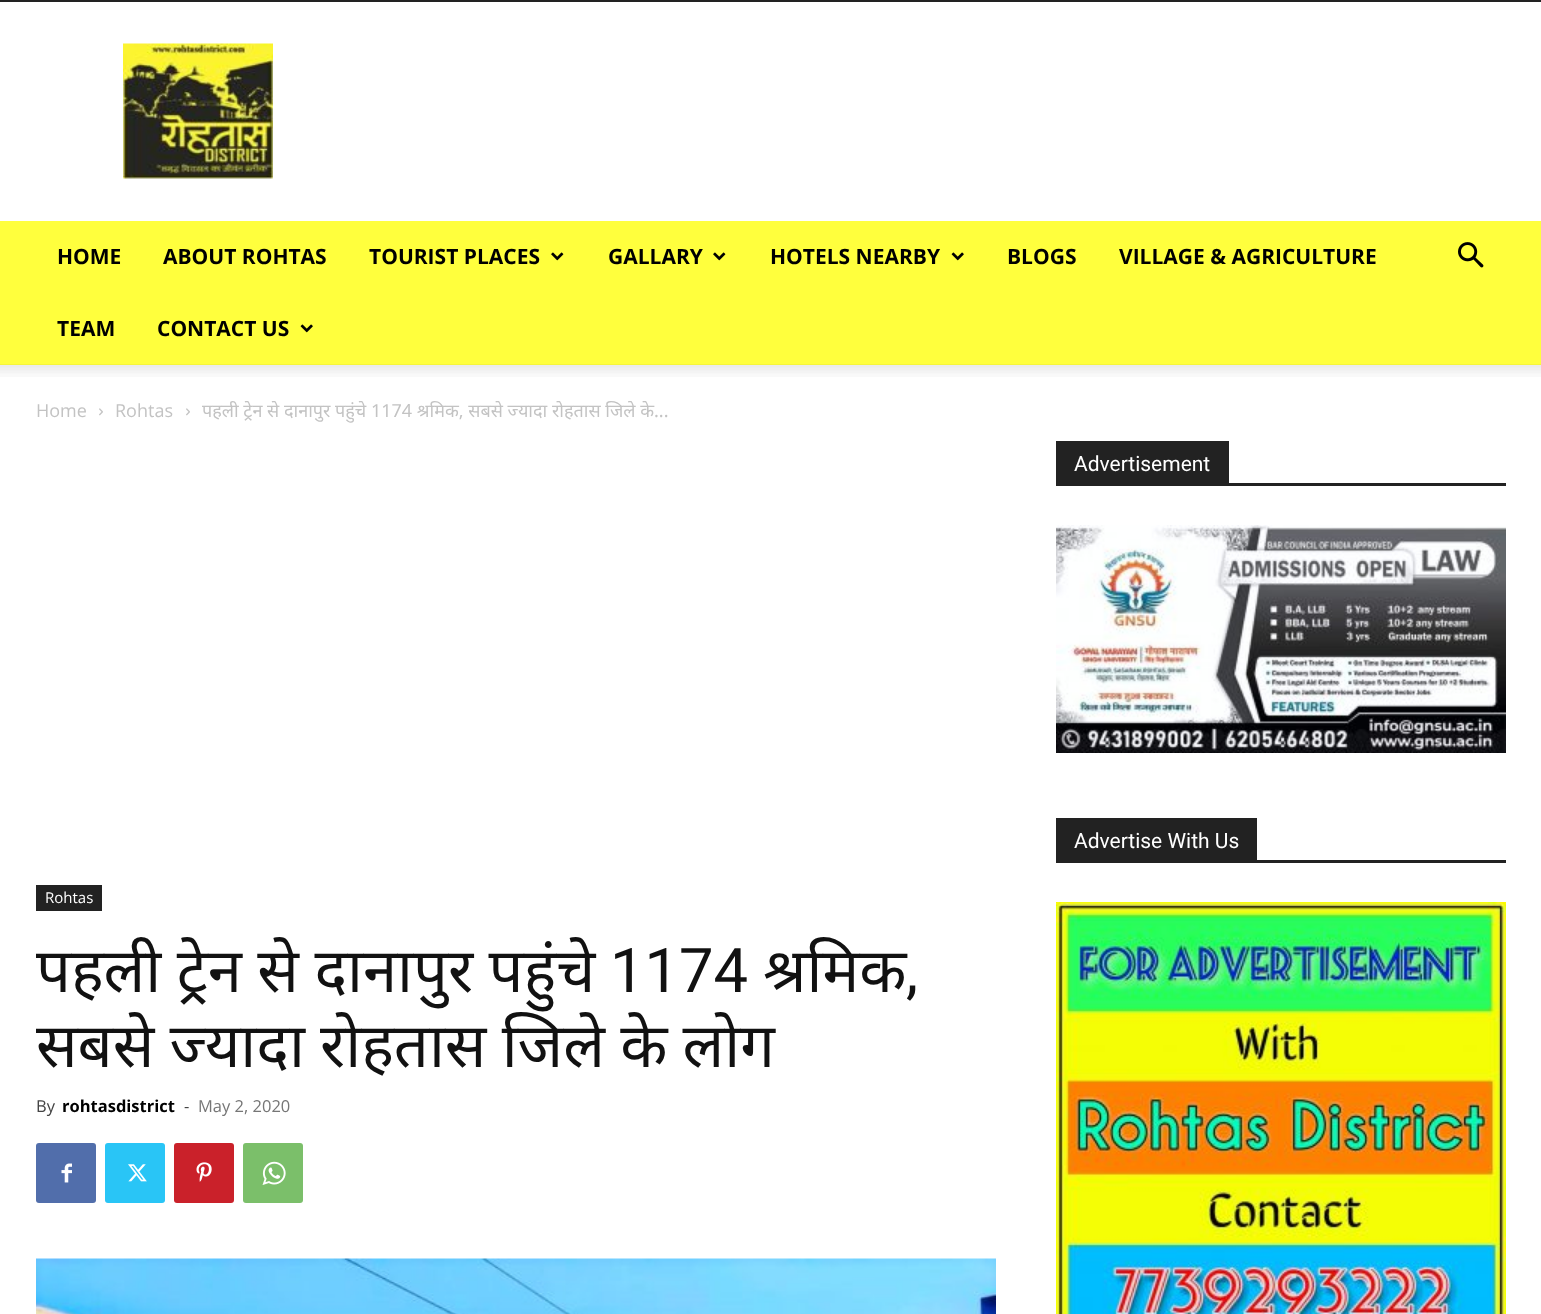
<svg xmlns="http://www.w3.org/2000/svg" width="1541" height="1314">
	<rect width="100%" height="100%" fill="#FFFFFF" />
	<rect x="0" y="0" width="1541" height="2" fill="#222222" />
	<image x="123" y="43" width="150" height="136" href="assets/img1.png" />
	<rect x="0" y="221" width="1541" height="144" fill="#FFFF3D" />
	<g font-family="Open Sans" font-size="21" font-weight="700" fill="#000000">
		<text x="57" y="264">HOME</text>
		<text x="163" y="264">ABOUT ROHTAS</text>
		<text x="369" y="264">TOURIST PLACES</text>
	</g>
	<image x="551" y="252" width="13" height="9" href="assets/img2.png" />
	<text x="608" y="264" font-family="Open Sans" font-size="21" font-weight="700" fill="#000000">GALLARY</text>
	<image x="713" y="252" width="13" height="9" href="assets/img2.png" />
	<text x="770" y="264" font-family="Open Sans" font-size="21" font-weight="700" fill="#000000">HOTELS NEARBY</text>
	<image x="951" y="252" width="13" height="9" href="assets/img3.png" />
	<g font-family="Open Sans" font-size="21" font-weight="700" fill="#000000">
		<text x="1007" y="264">BLOGS</text>
		<text x="1119" y="264">VILLAGE &amp; AGRICULTURE</text>
		<text x="57" y="336">TEAM</text>
		<text x="157" y="336">CONTACT US</text>
	</g>
	<image x="300" y="324" width="13" height="9" href="assets/img3.png" />
	<image x="1458" y="242" width="26" height="26" href="assets/img4.png" />
	<image x="0" y="364" width="1541" height="13" href="assets/img5.png" />
	<text x="36" y="417" font-family="Open Sans" font-size="18" fill="#C3C3C3">Home</text>
	<image x="99" y="408" width="4" height="8" href="assets/img6.png" />
	<text x="115" y="417" font-family="Open Sans" font-size="18" fill="#C3C3C3">Rohtas</text>
	<image x="186" y="408" width="4" height="8" href="assets/img6.png" />
	<text x="202" y="417" font-family="Noto Sans" font-size="18" fill="#C3C3C3">पहली ट्रेन से दानापुर पहुंचे 1174 श्रमिक, सबसे ज्यादा रोहतास जिले के...</text>
	<rect x="1056" y="483" width="450" height="3" fill="#222222" />
	<rect x="1056" y="441" width="173" height="42" fill="#222222" />
	<text x="1074" y="471" font-family="Roboto" font-size="21" fill="#FFFFFF">Advertisement</text>
	<image x="1056" y="525" width="450" height="228" href="assets/img7.png" />
	<rect x="1056" y="860" width="450" height="3" fill="#222222" />
	<rect x="1056" y="818" width="201" height="42" fill="#222222" />
	<text x="1074" y="848" font-family="Roboto" font-size="21" fill="#FFFFFF">Advertise With Us</text>
	<image x="1056" y="902" width="450" height="412" href="assets/img8.png" />
	<rect x="36" y="885" width="66" height="26" fill="#222222" />
	<text x="45" y="903" font-family="Open Sans" font-size="15" fill="#FFFFFF">Rohtas</text>
	<text x="36" y="992" word-spacing="-0.5" font-family="Noto Sans" font-size="61.5" fill="#111111">पहली ट्रेन से दानापुर पहुंचे</text>
	<text x="610" y="992" font-family="Roboto" font-size="61.5" fill="#111111">1174</text>
	<text x="763" y="992" font-family="Noto Sans" font-size="61.5" fill="#111111">श्रमिक</text>
	<text x="906" y="992" font-family="Roboto" font-size="61.5" fill="#111111">,</text>
	<text x="36" y="1067" word-spacing="-0.75" font-family="Noto Sans" font-size="61.5" fill="#111111">सबसे ज्यादा रोहतास जिले के लोग</text>
	<text x="36" y="1112" font-family="Open Sans" font-size="16.5" fill="#444444">By</text>
	<text x="62" y="1112" font-family="Open Sans" font-size="16.5" font-weight="700" fill="#000000">rohtasdistrict</text>
	<text x="184" y="1112" font-family="Open Sans" font-size="16.5" fill="#444444">-</text>
	<text x="198" y="1112" font-family="Open Sans" font-size="16.5" fill="#767676">May 2, 2020</text>
	<rect x="36" y="1143" width="60" height="60" rx="3" fill="#516EAB" />
	<image x="61" y="1163" width="11" height="20" href="assets/img9.png" />
	<rect x="105" y="1143" width="60" height="60" rx="3" fill="#29C5F6" />
	<image x="128" y="1164" width="19" height="18" href="assets/img10.png" />
	<rect x="174" y="1143" width="60" height="60" rx="3" fill="#CA212A" />
	<image x="196" y="1162" width="16" height="20" href="assets/img11.png" />
	<rect x="243" y="1143" width="60" height="60" rx="3" fill="#7BBF6A" />
	<image x="262" y="1161" width="24" height="24" href="assets/img12.png" />
	<image x="36" y="1258" width="960" height="56" href="assets/img13.png" />
</svg>
